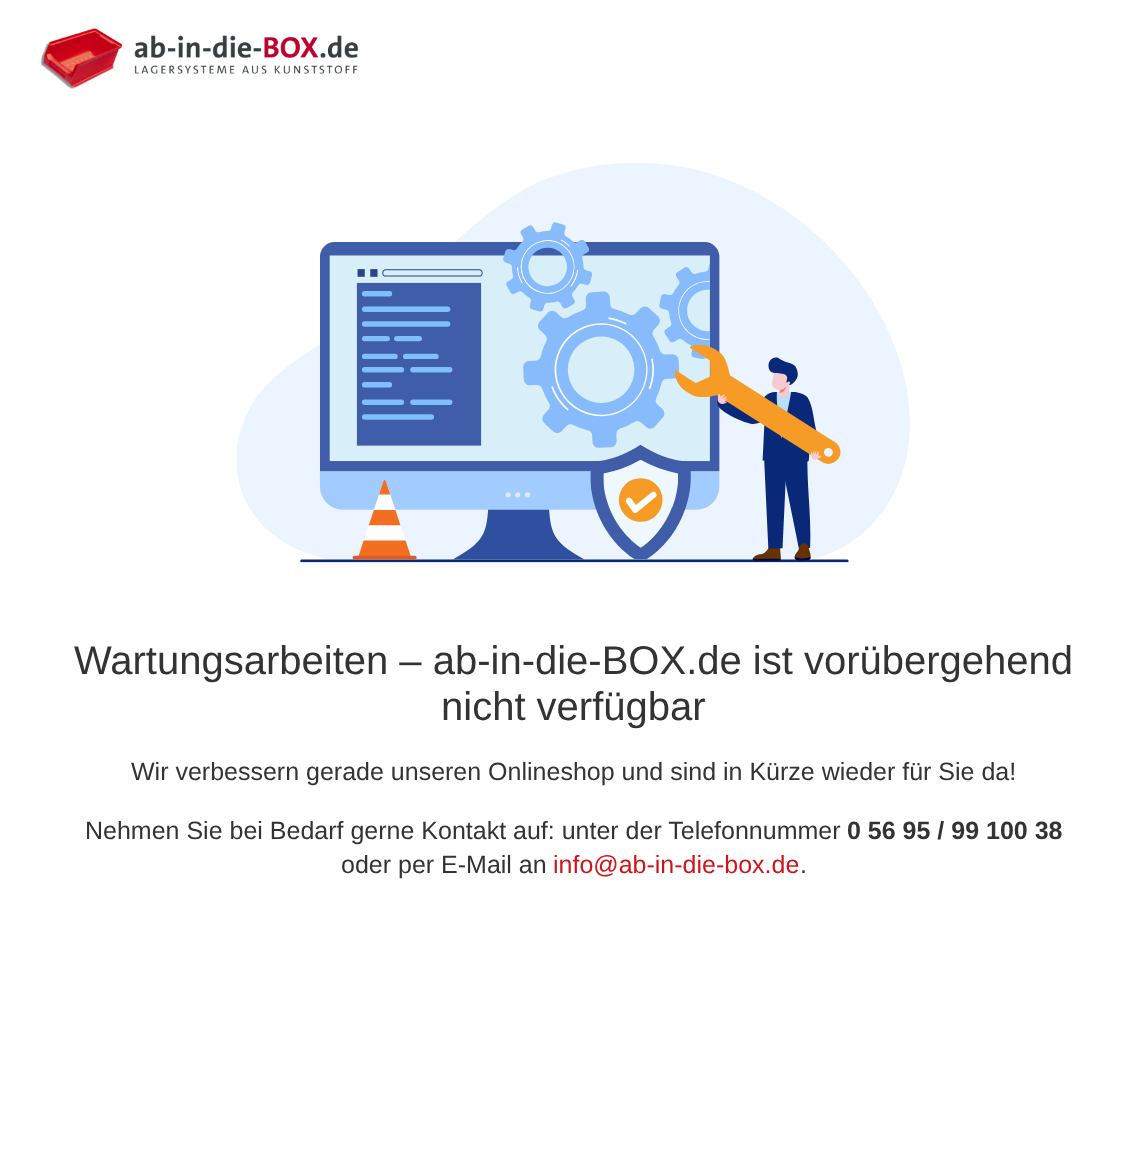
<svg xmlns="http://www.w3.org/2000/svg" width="1147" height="1159">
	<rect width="100%" height="100%" fill="#FFFFFF" />
	<image x="40" y="28" width="318" height="61" href="assets/img1.png" />
	<image x="236" y="163" width="674" height="400" href="assets/img2.png" />
	<g font-family="Liberation Sans" font-size="40" fill="#333333">
		<text x="74" y="674">Wartungsarbeiten – ab-in-die-BOX.de ist vorübergehend</text>
		<text x="441" y="720">nicht verfügbar</text>
	</g>
	<g font-family="Liberation Sans" font-size="25" fill="#333333">
		<text x="131" y="780">Wir verbessern gerade unseren Onlineshop und sind in Kürze wieder für Sie da!</text>
		<text x="85" y="839">Nehmen Sie bei Bedarf gerne Kontakt auf: unter der Telefonnummer</text>
	</g>
	<text x="847" y="839" font-family="Liberation Sans" font-size="25" font-weight="700" fill="#333333">0 56 95 / 99 100 38</text>
	<text x="341" y="873" font-family="Liberation Sans" font-size="25" fill="#333333">oder per E-Mail an</text>
	<text x="553" y="873" font-family="Liberation Sans" font-size="25" fill="#D01418">info@ab-in-die-box.de</text>
	<text x="800" y="873" font-family="Liberation Sans" font-size="25" fill="#333333">.</text>
</svg>
